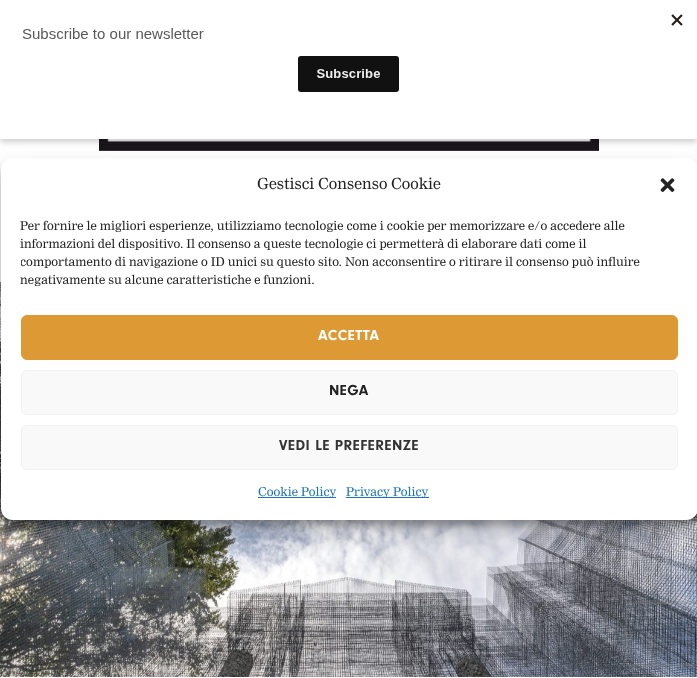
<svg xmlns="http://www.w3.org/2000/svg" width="697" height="678">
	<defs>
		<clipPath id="clip1"><path d="M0 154H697V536H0ZM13 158H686C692.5 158 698 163.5 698 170V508C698 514.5 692.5 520 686 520H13C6.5 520 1 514.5 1 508V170C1 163.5 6.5 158 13 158Z" clip-rule="evenodd" /></clipPath>
		<clipPath id="clip2"><path d="M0 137H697V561H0ZM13 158H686C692.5 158 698 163.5 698 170V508C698 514.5 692.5 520 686 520H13C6.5 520 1 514.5 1 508V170C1 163.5 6.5 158 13 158Z" clip-rule="evenodd" /></clipPath>
		<clipPath id="clip3"><rect x="21" y="218" width="657" height="77" /></clipPath>
		<clipPath id="clip4"><path d="M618 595H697V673H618ZM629 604H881C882 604 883 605 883 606V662C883 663 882 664 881 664H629C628 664 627 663 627 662V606C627 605 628 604 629 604Z" clip-rule="evenodd" /></clipPath>
	</defs>
	<rect width="100%" height="100%" fill="#FFFFFF" />
	<image x="99" y="139" width="500" height="12" href="assets/img2.png" />
	<rect x="0" y="3" width="697" height="139" fill="#000000" fill-opacity="0.2" filter="blur(3px)" />
	<rect x="0" y="0" width="697" height="139" fill="#FFFFFF" />
	<image x="22" y="14" width="661" height="78" href="assets/img1.png" />
	<image x="0" y="282" width="697" height="395" href="assets/img3.png" />
	<g clip-path="url(#clip1)">
		<rect x="1" y="164" width="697" height="362" rx="12" fill="#000000" fill-opacity="0.23" filter="blur(3px)" />
	</g>
	<g clip-path="url(#clip2)">
		<rect x="1" y="168" width="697" height="362" rx="12" fill="#000000" fill-opacity="0.19" filter="blur(10px)" />
	</g>
	<rect x="1" y="158" width="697" height="362" rx="12" fill="#FFFFFF" />
	<text x="257" y="189" font-family="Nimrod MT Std" font-size="15" fill="#222222">Gestisci Consenso Cookie</text>
	<image x="660" y="178" width="15" height="14" href="assets/img4.png" />
	<g font-family="Nimrod MT Std" font-size="12" fill="#222222">
		<text x="20" y="230">Per fornire le migliori esperienze, utilizziamo tecnologie come i cookie per memorizzare e/o accedere alle</text>
		<text x="20" y="248">informazioni del dispositivo. Il consenso a queste tecnologie ci permetterà di elaborare dati come il</text>
	</g>
	<g clip-path="url(#clip3)">
		<text x="20" y="266" font-family="Nimrod MT Std" font-size="12" fill="#222222">comportamento di navigazione o ID unici su questo sito. Non acconsentire o ritirare il consenso può influire</text>
	</g>
	<text x="20" y="284" font-family="Nimrod MT Std" font-size="12" fill="#222222">negativamente su alcune caratteristiche e funzioni.</text>
	<rect x="21.5" y="315.5" width="656" height="44" rx="5.5" fill="#DD9933" stroke="#DD9933" />
	<text x="318" y="340" font-family="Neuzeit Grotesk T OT" font-size="15" font-weight="700" letter-spacing="0.5" fill="#FFFFFF">ACCETTA</text>
	<rect x="21.5" y="370.5" width="656" height="44" rx="5.5" fill="#F9F9F9" stroke="#F2F2F2" />
	<text x="329" y="395" font-family="Neuzeit Grotesk T OT" font-size="15" font-weight="700" letter-spacing="0.5" fill="#222222">NEGA</text>
	<rect x="21.5" y="425.5" width="656" height="44" rx="5.5" fill="#F9F9F9" stroke="#F2F2F2" />
	<text x="279" y="450" font-family="Neuzeit Grotesk T OT" font-size="15" font-weight="700" letter-spacing="0.5" fill="#333333">VEDI LE PREFERENZE</text>
	<rect x="258" y="497" width="78" height="1" fill="#1E73BE" />
	<text x="258" y="496" font-family="Nimrod MT Std" font-size="12" fill="#1E73BE">Cookie Policy</text>
	<rect x="346" y="497" width="83" height="1" fill="#1E73BE" />
	<text x="346" y="496" font-family="Nimrod MT Std" font-size="12" fill="#1E73BE">Privacy Policy</text>
	<g clip-path="url(#clip4)">
		<rect x="627" y="604" width="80" height="60" rx="2" fill="#808080" filter="blur(2.5px)" />
	</g>
</svg>
